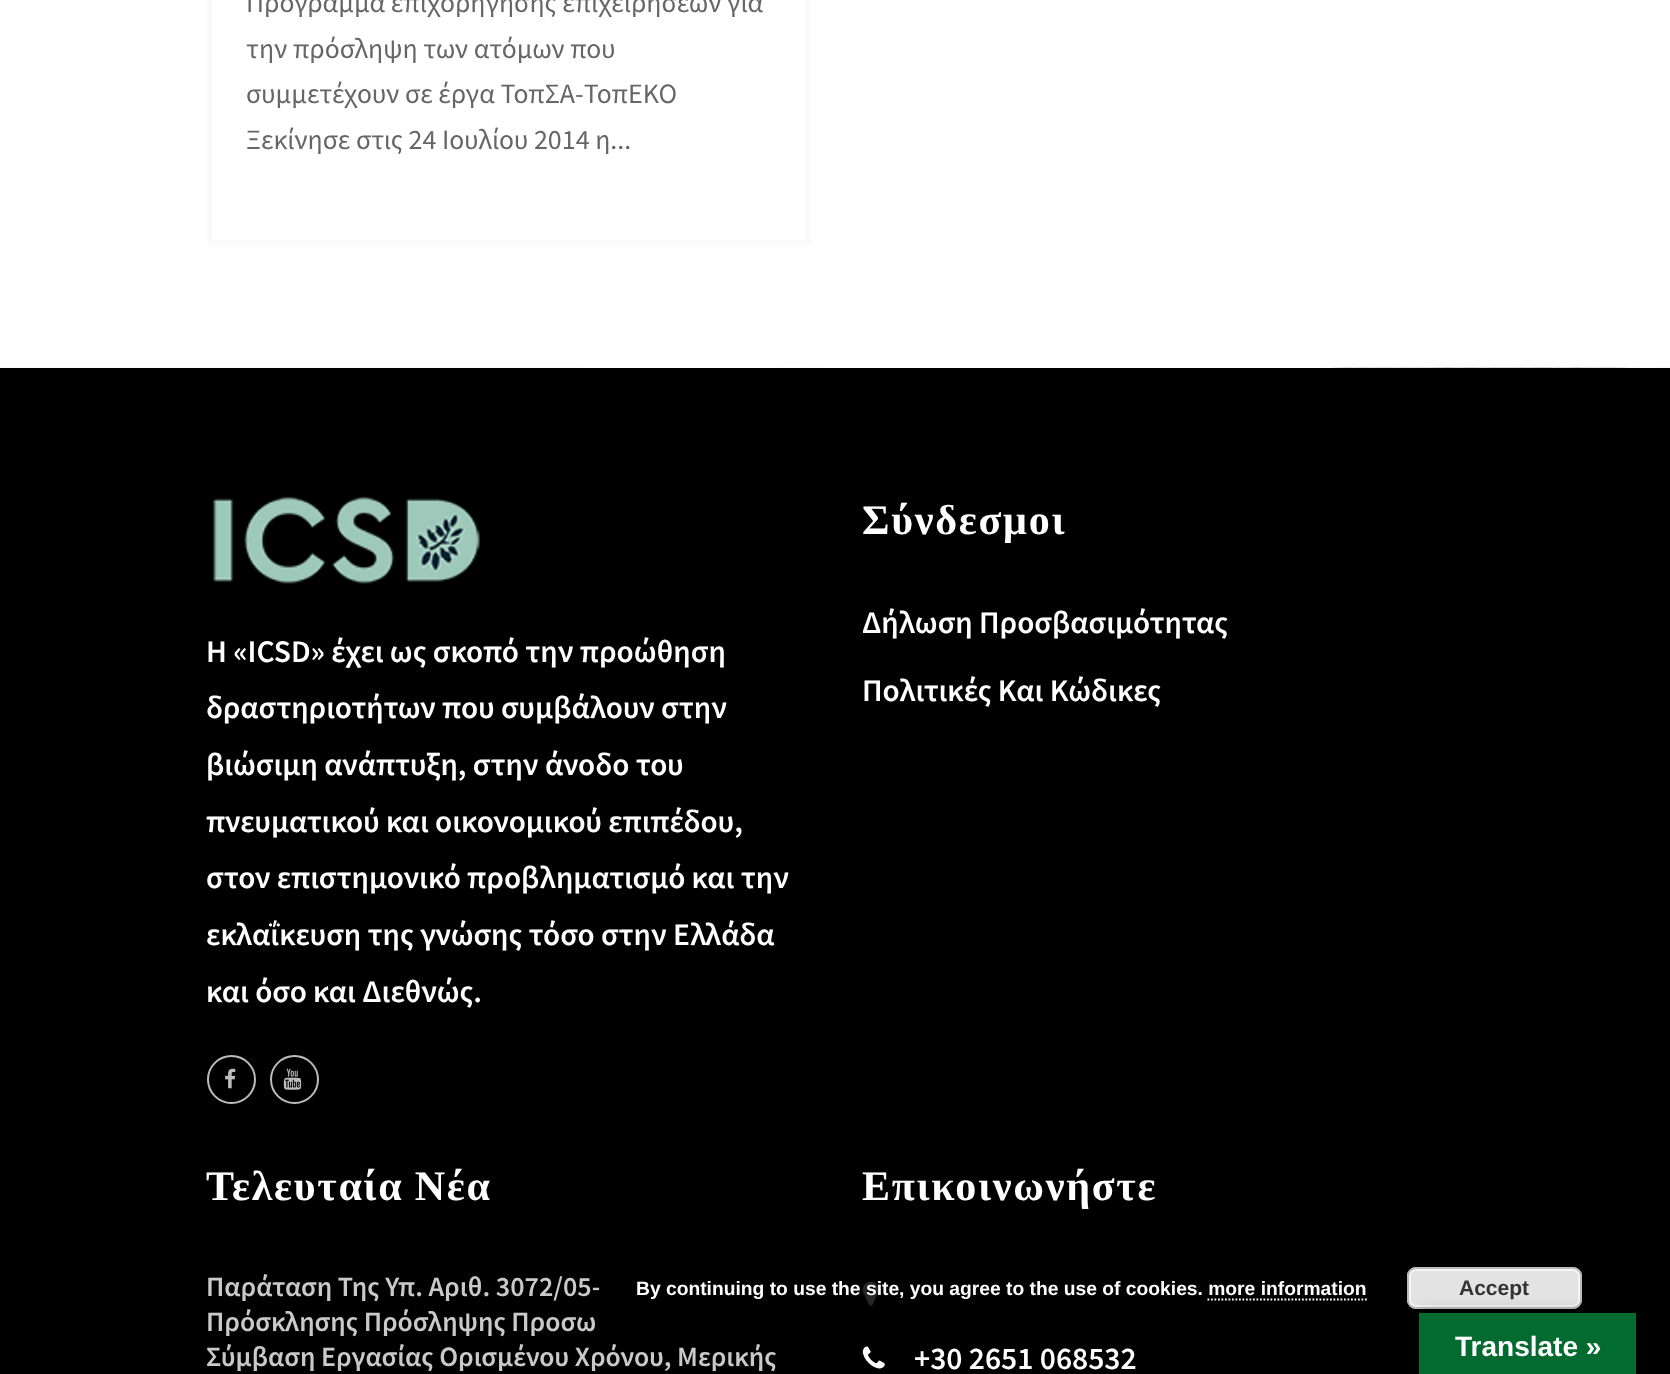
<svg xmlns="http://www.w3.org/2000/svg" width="1670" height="1374">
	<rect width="100%" height="100%" fill="#FFFFFF" />
	<rect x="209.5" y="-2.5" width="598" height="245" fill="none" stroke="#FAFAFA" stroke-width="5" />
	<g font-family="Source Sans Pro" font-size="28" fill="#666666">
		<text x="246" y="12">Πρόγραμμα επιχορήγησης επιχειρήσεων για</text>
		<text x="246" y="58">την πρόσληψη των ατόμων που</text>
		<text x="246" y="103">συμμετέχουν σε έργα ΤοπΣΑ-ΤοπΕΚΟ</text>
		<text x="246" y="149">Ξεκίνησε στις 24 Ιουλίου 2014 η...</text>
	</g>
	<image x="0" y="367" width="1670" height="1" href="assets/img1.png" />
	<rect x="0" y="368" width="1670" height="1006" fill="#000000" />
	<text x="862" y="534" font-family="Liberation Serif" font-size="42" font-weight="700" letter-spacing="1.75" fill="#FFFFFF">Σύνδεσμοι</text>
	<g font-family="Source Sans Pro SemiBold" font-size="31.5" font-weight="600" fill="#FFFFFF">
		<text x="862" y="633">Δήλωση Προσβασιμότητας</text>
		<text x="862" y="701">Πολιτικές Και Κώδικες</text>
	</g>
	<image x="213" y="496" width="267" height="88" href="assets/img2.png" />
	<g font-family="Source Sans Pro SemiBold" font-size="31.5" font-weight="600" fill="#FFFFFF">
		<text x="206" y="662">Η «ICSD» έχει ως σκοπό την προώθηση</text>
		<text x="206" y="718">δραστηριοτήτων που συμβάλουν στην</text>
		<text x="206" y="775">βιώσιμη ανάπτυξη, στην άνοδο του</text>
		<text x="206" y="832">πνευματικού και οικονομικού επιπέδου,</text>
		<text x="206" y="888">στον επιστημονικό προβληματισμό και την</text>
		<text x="206" y="945">εκλαΐκευση της γνώσης τόσο στην Ελλάδα</text>
		<text x="206" y="1002">και όσο και Διεθνώς.</text>
	</g>
	<circle cx="231.5" cy="1079.5" r="23.5" fill="none" stroke="#BCBCBC" stroke-width="2" />
	<image x="225" y="1068" width="11" height="21" href="assets/img3.png" />
	<circle cx="294.5" cy="1079.5" r="23.5" fill="none" stroke="#BCBCBC" stroke-width="2" />
	<image x="283" y="1068" width="19" height="22" href="assets/img4.png" />
	<text x="206" y="1200" word-spacing="-1" font-family="Liberation Serif" font-size="42" font-weight="700" letter-spacing="1.75" fill="#FFFFFF">Τελευταία Νέα</text>
	<g font-family="Source Sans Pro SemiBold" font-size="28" font-weight="600" fill="#C9C9C9">
		<text x="206" y="1296">Παράταση Της Υπ. Αριθ. 3072/05-</text>
		<text x="206" y="1331">Πρόσκλησης Πρόσληψης Προσω</text>
		<text x="206" y="1366">Σύμβαση Εργασίας Ορισμένου Χρόνου, Μερικής</text>
	</g>
	<text x="862" y="1200" font-family="Liberation Serif" font-size="42" font-weight="700" letter-spacing="1.75" fill="#FFFFFF">Επικοινωνήστε</text>
	<image x="862" y="1281" width="17" height="25" href="assets/img5.png" />
	<image x="862" y="1346" width="23" height="23" href="assets/img6.png" />
	<text x="914" y="1369" font-family="Source Sans Pro SemiBold" font-size="31.5" font-weight="600" fill="#FFFFFF">+30 2651 068532</text>
	<rect x="599" y="1253" width="1020" height="70" rx="9" fill="#000000" fill-opacity="0.85" />
	<text x="636" y="1295" font-family="Liberation Sans" font-size="19.25" font-weight="700" fill="#FFFFFF">By continuing to use the site, you agree to the use of cookies. more information</text>
	<rect x="1407" y="1267" width="175" height="42" rx="9" fill="#E3E3E3" />
	<rect x="1410" y="1270" width="169" height="36" rx="6" fill="none" stroke="#F6F6F6" stroke-width="2" />
	<rect x="1408" y="1268" width="173" height="40" rx="8" fill="none" stroke="#BBBBBB" stroke-width="2" />
	<text x="1459" y="1295" font-family="Liberation Sans" font-size="21" font-weight="700" fill="#333333">Accept</text>
	<path d="M1207.5 1299.5H1367" fill="none" stroke="#FFFFFF" stroke-width="1.8" stroke-dasharray="1.75 1.75" />
	<rect x="1419" y="1313" width="217" height="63" fill="#000000" fill-opacity="0.3" filter="blur(8px)" />
	<rect x="1419" y="1313" width="217" height="61" fill="#036B30" />
	<text x="1455" y="1356" font-family="Liberation Sans" font-size="28" font-weight="700" fill="#FFFFFF">Translate »</text>
</svg>
